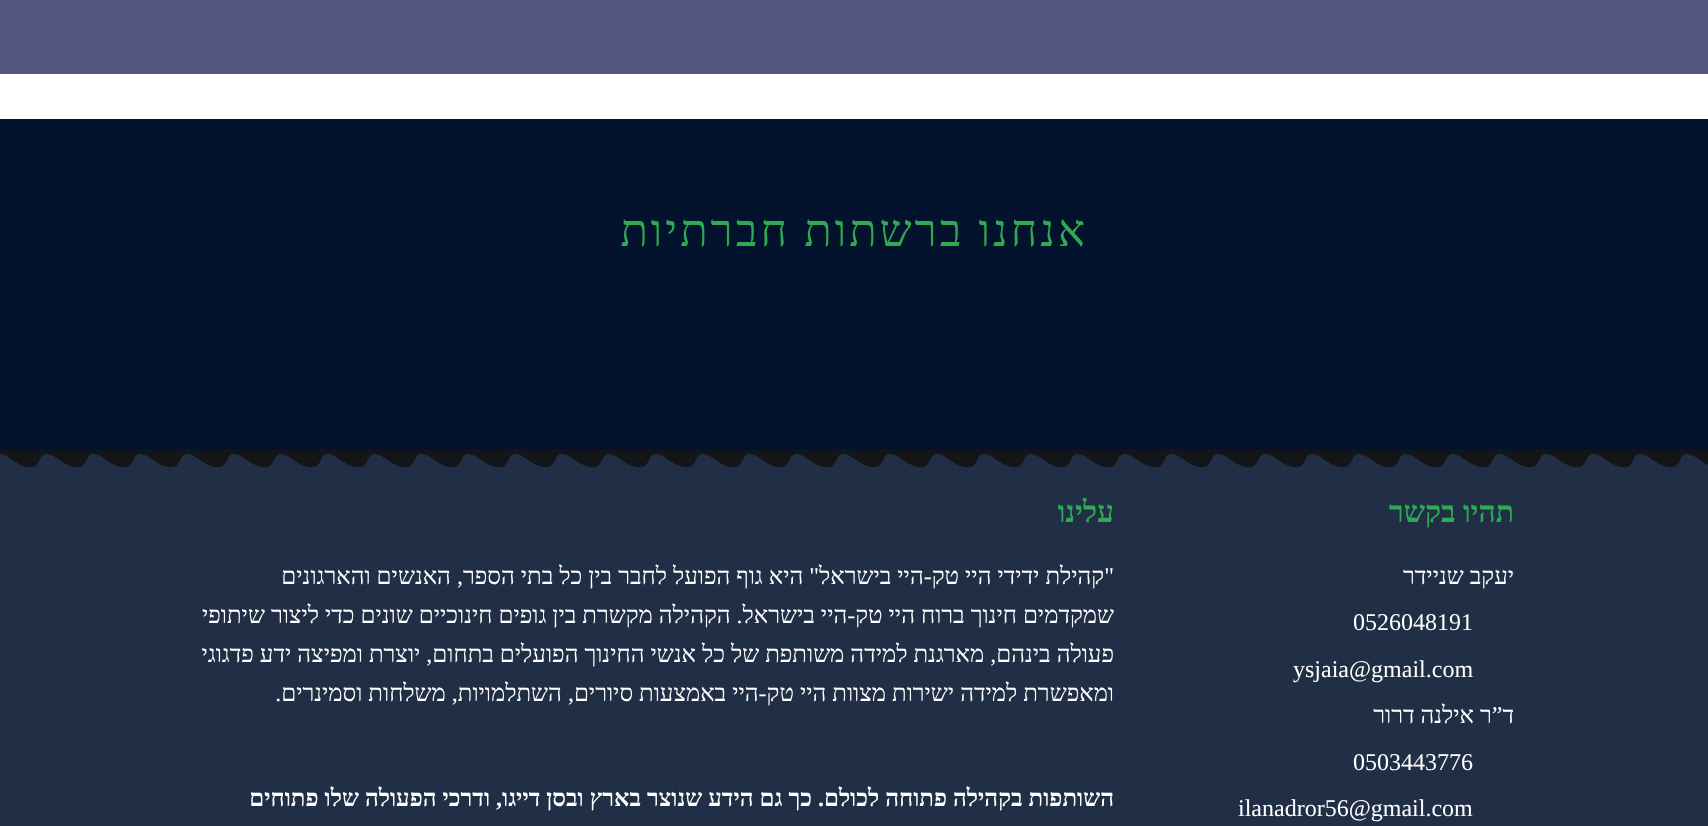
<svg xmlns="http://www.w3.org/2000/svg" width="1708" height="826">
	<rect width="100%" height="100%" fill="#FFFFFF" />
	<rect x="0" y="0" width="1708" height="74" fill="#50567E" />
	<rect x="0" y="119" width="1708" height="331" fill="#03132D" />
	<text x="1088" y="246" font-family="Liberation Serif" font-size="45" letter-spacing="3" direction="rtl" fill="#30A954">אנחנו ברשתות חברתיות</text>
	<rect x="0" y="454" width="1708" height="372" fill="#212F46" />
	<image x="0" y="450" width="1708" height="18" href="assets/img1.png" />
	<text x="1514" y="522" font-family="Liberation Serif" font-size="30" font-weight="700" direction="rtl" fill="#30A954">תהיו בקשר</text>
	<text x="1514" y="584" font-family="Liberation Serif" font-size="24" direction="rtl" fill="#FFFFFF">יעקב שניידר</text>
	<g font-family="Liberation Serif" font-size="24" fill="#FFFFFF">
		<text x="1353" y="630">0526048191</text>
		<text x="1293" y="677">ysjaia@gmail.com</text>
	</g>
	<text x="1514" y="723" font-family="Liberation Serif" font-size="24" direction="rtl" fill="#FFFFFF">ד”ר אילנה דרור</text>
	<g font-family="Liberation Serif" font-size="24" fill="#FFFFFF">
		<text x="1353" y="770">0503443776</text>
		<text x="1238" y="816">ilanadror56@gmail.com</text>
	</g>
	<text x="1114" y="522" font-family="Liberation Serif" font-size="30" font-weight="700" direction="rtl" fill="#30A954">עלינו</text>
	<g font-family="Liberation Serif" font-size="24" direction="rtl" fill="#FFFFFF">
		<text x="1114" y="584">"קהילת ידידי היי טק-היי בישראל" היא גוף הפועל לחבר בין כל בתי הספר, האנשים והארגונים</text>
		<text x="1114" y="623">שמקדמים חינוך ברוח היי טק-היי בישראל. הקהילה מקשרת בין גופים חינוכיים שונים כדי ליצור שיתופי</text>
		<text x="1114" y="662">פעולה בינהם, מארגנת למידה משותפת של כל אנשי החינוך הפועלים בתחום, יוצרת ומפיצה ידע פדגוגי</text>
		<text x="1114" y="701">ומאפשרת למידה ישירות מצוות היי טק-היי באמצעות סיורים, השתלמויות, משלחות וסמינרים.</text>
	</g>
	<text x="1114" y="806" font-family="Liberation Serif" font-size="24" font-weight="700" direction="rtl" fill="#FFFFFF">השותפות בקהילה פתוחה לכולם. כך גם הידע שנוצר בארץ ובסן דייגו, ודרכי הפעולה שלו פתוחים</text>
</svg>
